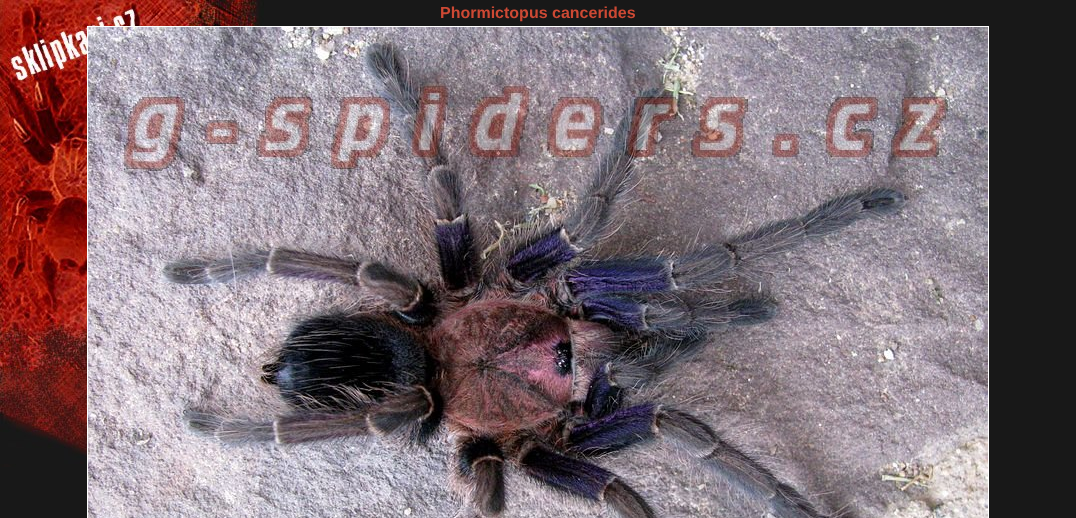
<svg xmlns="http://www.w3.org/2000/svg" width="1076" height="518">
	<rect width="100%" height="100%" fill="#181818" />
	<image x="0" y="0" width="264" height="467" href="assets/img1.png" />
	<text x="440" y="18" font-family="Liberation Sans" font-size="16" font-weight="700" fill="#CD4934">Phormictopus cancerides</text>
	<rect x="87.5" y="26.5" width="901" height="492" fill="none" stroke="#FFFFFF" />
	<image x="88" y="27" width="900" height="491" href="assets/img2.png" />
</svg>
